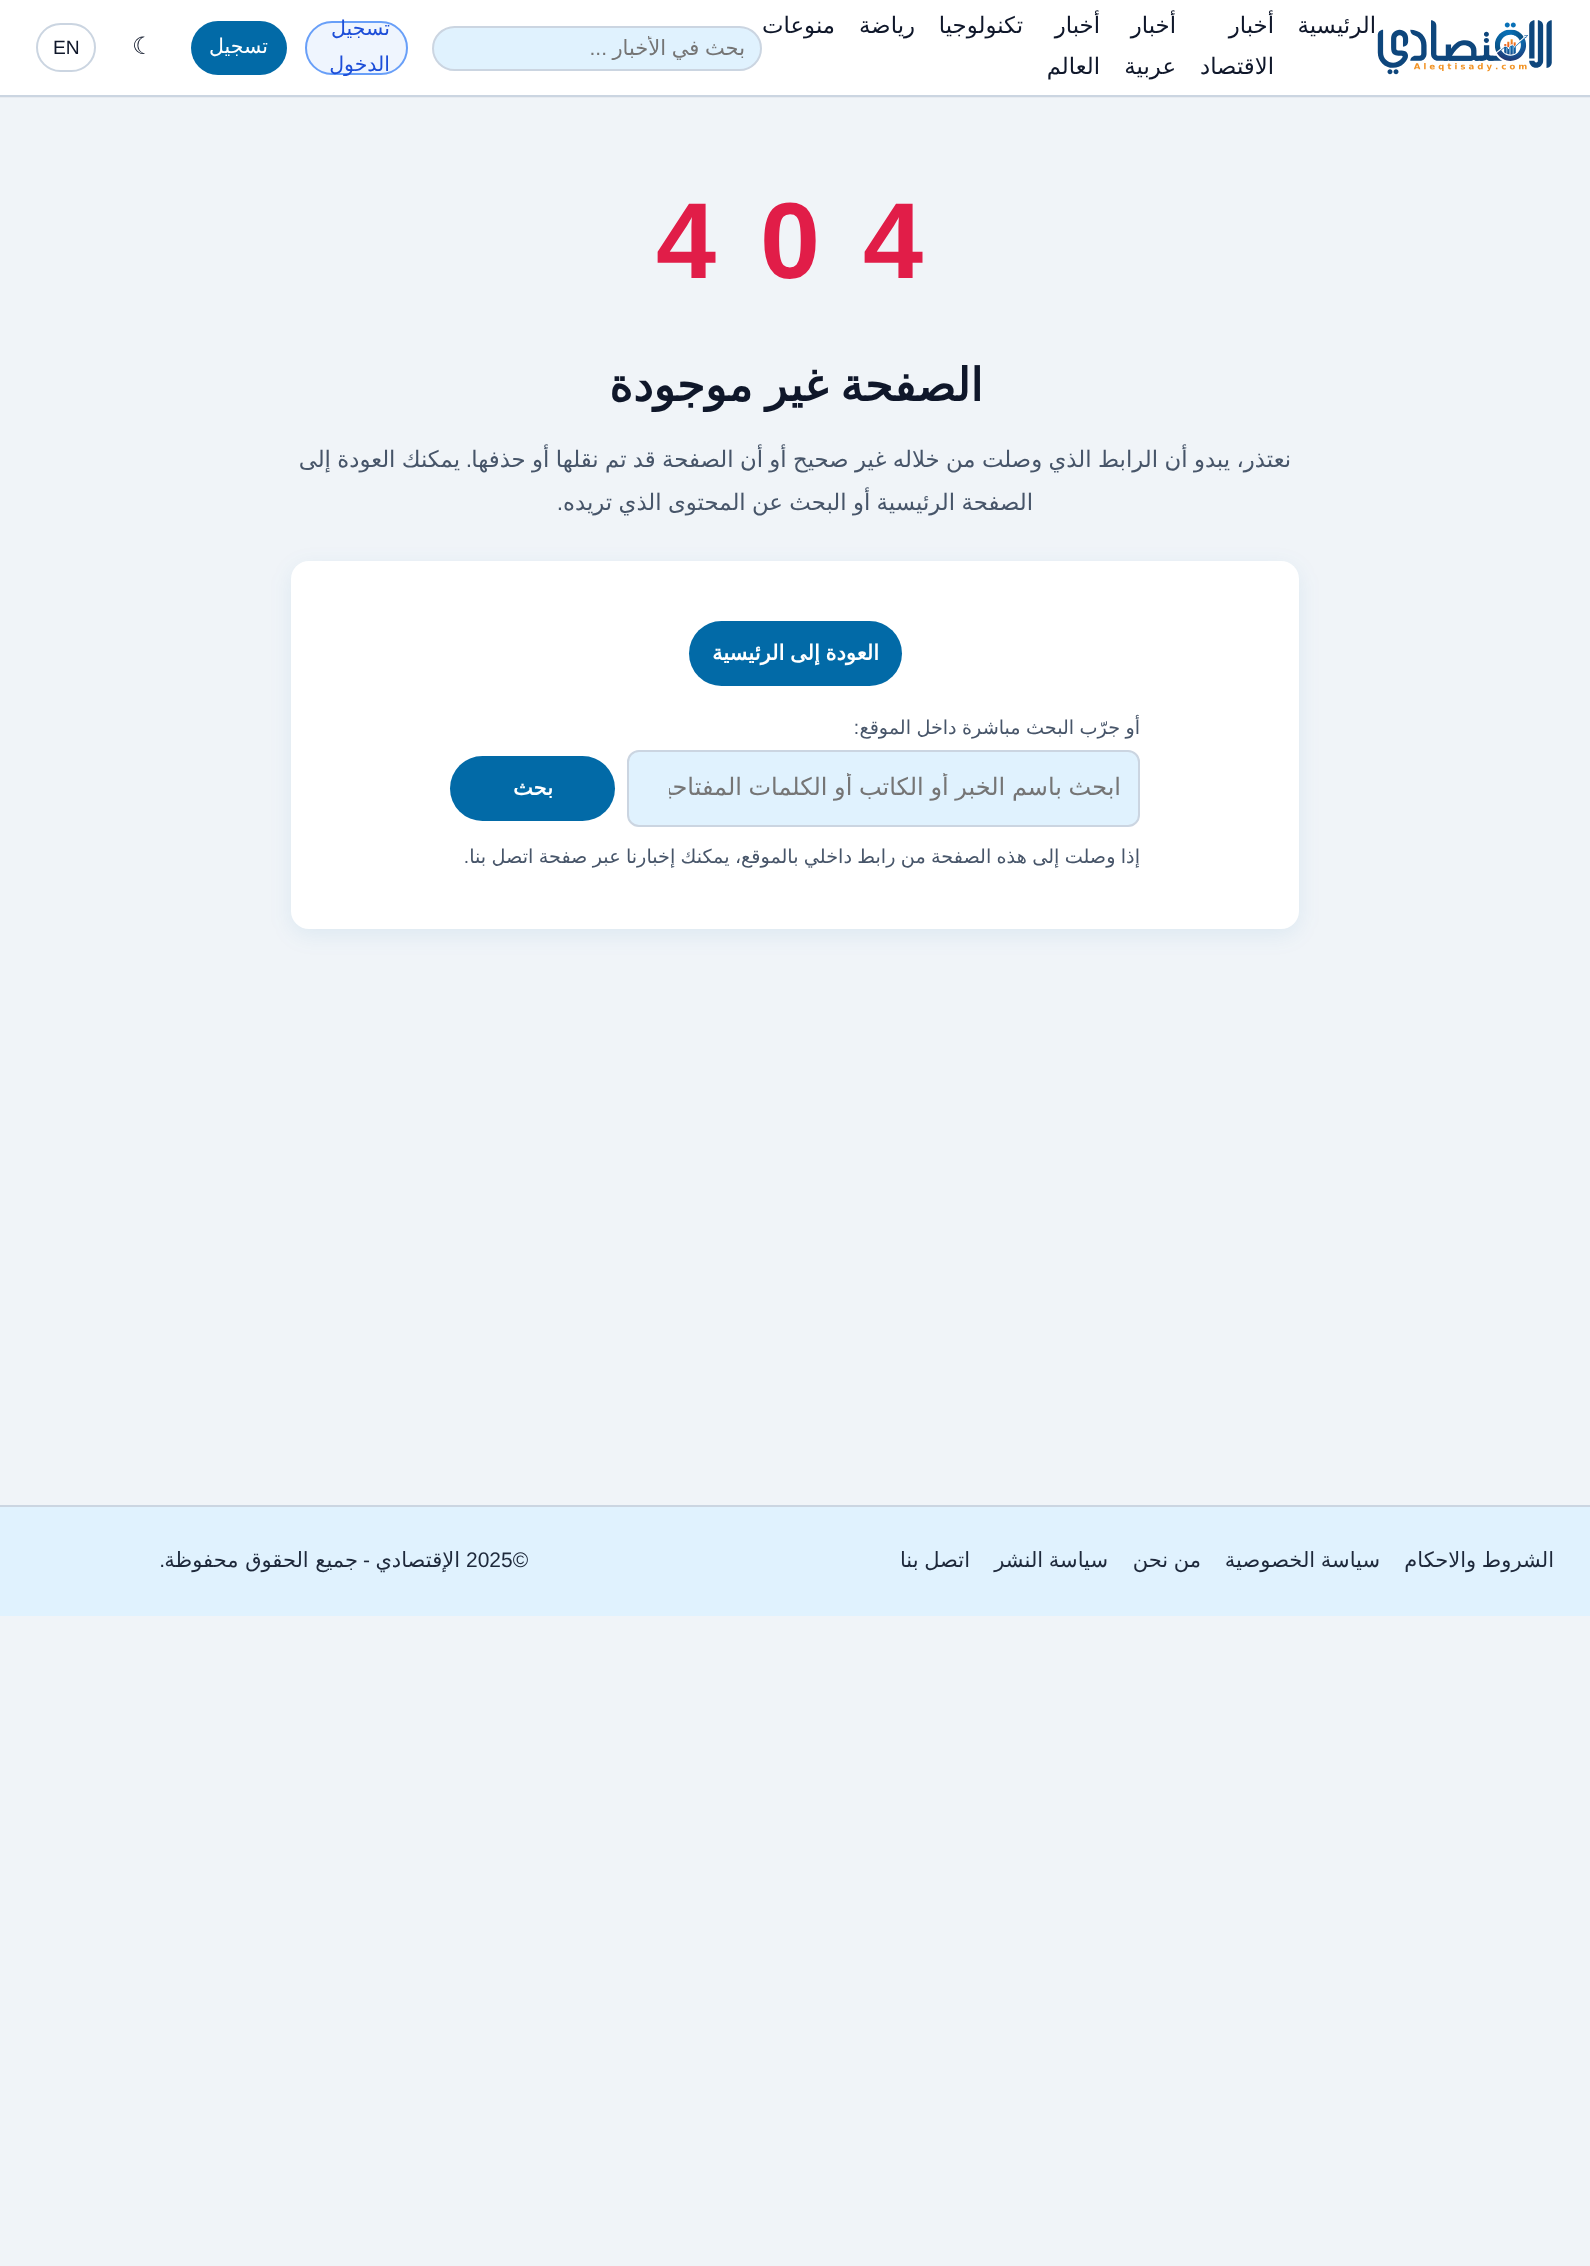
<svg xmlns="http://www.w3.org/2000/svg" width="1590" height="2266">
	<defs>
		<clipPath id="clip1"><rect x="470" y="36" width="276" height="24" /></clipPath>
		<clipPath id="clip2"><rect x="669" y="773" width="452" height="28" /></clipPath>
	</defs>
	<rect width="100%" height="100%" fill="#F0F4F8" />
	<rect x="0" y="97" width="1590" height="1" fill="#E7EBF0" />
	<rect x="0" y="0" width="1590" height="95" fill="#FFFFFF" />
	<rect x="0" y="95" width="1590" height="2" fill="#CBD5E1" />
	<image x="1377" y="20" width="175" height="55" href="assets/img1.png" />
	<g font-family="DejaVu Sans" font-size="22.8" direction="rtl" fill="#0F172A">
		<text x="1376" y="33">الرئيسية</text>
		<text x="1274" y="33">أخبار</text>
		<text x="1274" y="74">الاقتصاد</text>
		<text x="1176" y="33">أخبار</text>
		<text x="1176" y="74">عربية</text>
		<text x="1100" y="33">أخبار</text>
		<text x="1100" y="74">العالم</text>
		<text x="1023" y="33">تكنولوجيا</text>
		<text x="915" y="33">رياضة</text>
		<text x="835" y="33">منوعات</text>
	</g>
	<rect x="433" y="27" width="328" height="43" rx="21.5" fill="#E0F2FE" stroke="#CBD5E1" stroke-width="2" />
	<g clip-path="url(#clip1)">
		<text x="745" y="55" word-spacing="-1" font-family="DejaVu Sans" font-size="21" direction="rtl" fill="#757575">بحث في الأخبار</text>
	</g>
	<text x="607" y="55" font-family="Liberation Sans" font-size="21" direction="rtl" fill="#757575">...</text>
	<rect x="305" y="21" width="103" height="54" rx="27" fill="#EFF5FE" />
	<rect x="306" y="22" width="101" height="52" rx="26" fill="none" stroke="#3B82F6" stroke-opacity="0.75" stroke-width="2" />
	<g font-family="DejaVu Sans" font-size="20.5" direction="rtl" fill="#1D4ED8">
		<text x="390" y="35">تسجيل</text>
		<text x="390" y="71">الدخول</text>
	</g>
	<rect x="191" y="21" width="96" height="54" rx="27" fill="#026AA7" />
	<text x="268" y="53" font-family="DejaVu Sans" font-size="20.5" direction="rtl" fill="#FFFFFF">تسجيل</text>
	<text x="132" y="54" font-family="DejaVu Sans" font-size="24" fill="#0F172A">☾</text>
	<rect x="37" y="24" width="58" height="47" rx="23.5" fill="none" stroke="#CBD5E1" stroke-width="2" />
	<text x="53" y="54" font-family="Liberation Sans" font-size="19.2" fill="#0F172A">EN</text>
	<g font-family="Liberation Sans" font-size="108" font-weight="700" letter-spacing="11" fill="#E11D48">
		<text x="863" y="278">4</text>
		<text x="760" y="278">0</text>
		<text x="656" y="278">4</text>
	</g>
	<text x="983" y="401" word-spacing="-2" font-family="DejaVu Sans" font-size="45.5" font-weight="700" direction="rtl" fill="#0F172A">الصفحة غير موجودة</text>
	<text x="1291" y="467" word-spacing="-0.9" font-family="DejaVu Sans" font-size="22.8" direction="rtl" fill="#475569">نعتذر، يبدو أن الرابط الذي وصلت من خلاله غير صحيح أو أن الصفحة قد تم نقلها أو حذفها</text>
	<text x="472" y="467" font-family="Liberation Sans" font-size="22.8" direction="rtl" fill="#475569">.</text>
	<g font-family="DejaVu Sans" font-size="22.8" direction="rtl" fill="#475569">
		<text x="460" y="467" word-spacing="-0.9">يمكنك العودة إلى</text>
		<text x="1033" y="510" word-spacing="-0.9">الصفحة الرئيسية أو البحث عن المحتوى الذي تريده</text>
	</g>
	<text x="563" y="510" font-family="Liberation Sans" font-size="22.8" direction="rtl" fill="#475569">.</text>
	<rect x="291" y="567" width="1008" height="368" rx="18" fill="#026AA7" fill-opacity="0.08" filter="blur(11px)" />
	<rect x="291" y="561" width="1008" height="368" rx="18" fill="#FFFFFF" />
	<rect x="689" y="621" width="213" height="65" rx="32.5" fill="#026AA7" />
	<text x="879" y="660" word-spacing="-1" font-family="DejaVu Sans" font-size="21" font-weight="700" direction="rtl" fill="#FFFFFF">العودة إلى الرئيسية</text>
	<text x="1140" y="734" word-spacing="-0.75" font-family="DejaVu Sans" font-size="19.2" direction="rtl" fill="#475569">أو جرّب البحث مباشرة داخل الموقع</text>
	<text x="859" y="734" font-family="Liberation Sans" font-size="19.2" direction="rtl" fill="#475569">:</text>
	<rect x="628" y="751" width="511" height="75" rx="11" fill="#E0F2FE" stroke="#CBD5E1" stroke-width="2" />
	<g clip-path="url(#clip2)">
		<text x="1121" y="795" word-spacing="-1" font-family="DejaVu Sans" font-size="24" direction="rtl" fill="#757575">ابحث باسم الخبر أو الكاتب أو الكلمات المفتاحية</text>
	</g>
	<rect x="450" y="756" width="165" height="65" rx="32.5" fill="#026AA7" />
	<text x="553" y="795" font-family="DejaVu Sans" font-size="21" font-weight="700" direction="rtl" fill="#FFFFFF">بحث</text>
	<text x="1140" y="863" word-spacing="-0.75" font-family="DejaVu Sans" font-size="19.2" direction="rtl" fill="#475569">إذا وصلت إلى هذه الصفحة من رابط داخلي بالموقع، يمكنك إخبارنا عبر صفحة اتصل بنا</text>
	<text x="469" y="863" font-family="Liberation Sans" font-size="19.2" direction="rtl" fill="#475569">.</text>
	<rect x="0" y="1507" width="1590" height="109" fill="#E0F2FE" />
	<rect x="0" y="1505" width="1590" height="2" fill="#CBD5E1" />
	<g font-family="DejaVu Sans" font-size="21" direction="rtl" fill="#1E293B">
		<text x="1554" y="1567" word-spacing="-1">الشروط والاحكام</text>
		<text x="1380" y="1567" word-spacing="-1">سياسة الخصوصية</text>
		<text x="1201" y="1567" word-spacing="-1">من نحن</text>
		<text x="1108" y="1567" word-spacing="-1">سياسة النشر</text>
		<text x="970" y="1567" word-spacing="-1">اتصل بنا</text>
	</g>
	<text x="466" y="1567" font-family="Liberation Sans" font-size="21" fill="#1E293B">2025©</text>
	<text x="460" y="1567" font-family="DejaVu Sans" font-size="21" direction="rtl" fill="#1E293B">الإقتصادي</text>
	<text x="370" y="1567" font-family="Liberation Sans" font-size="21" direction="rtl" fill="#1E293B">-</text>
	<text x="358" y="1567" font-family="DejaVu Sans" font-size="21" direction="rtl" fill="#1E293B">جميع الحقوق محفوظة</text>
	<text x="165" y="1567" font-family="Liberation Sans" font-size="21" direction="rtl" fill="#1E293B">.</text>
</svg>
